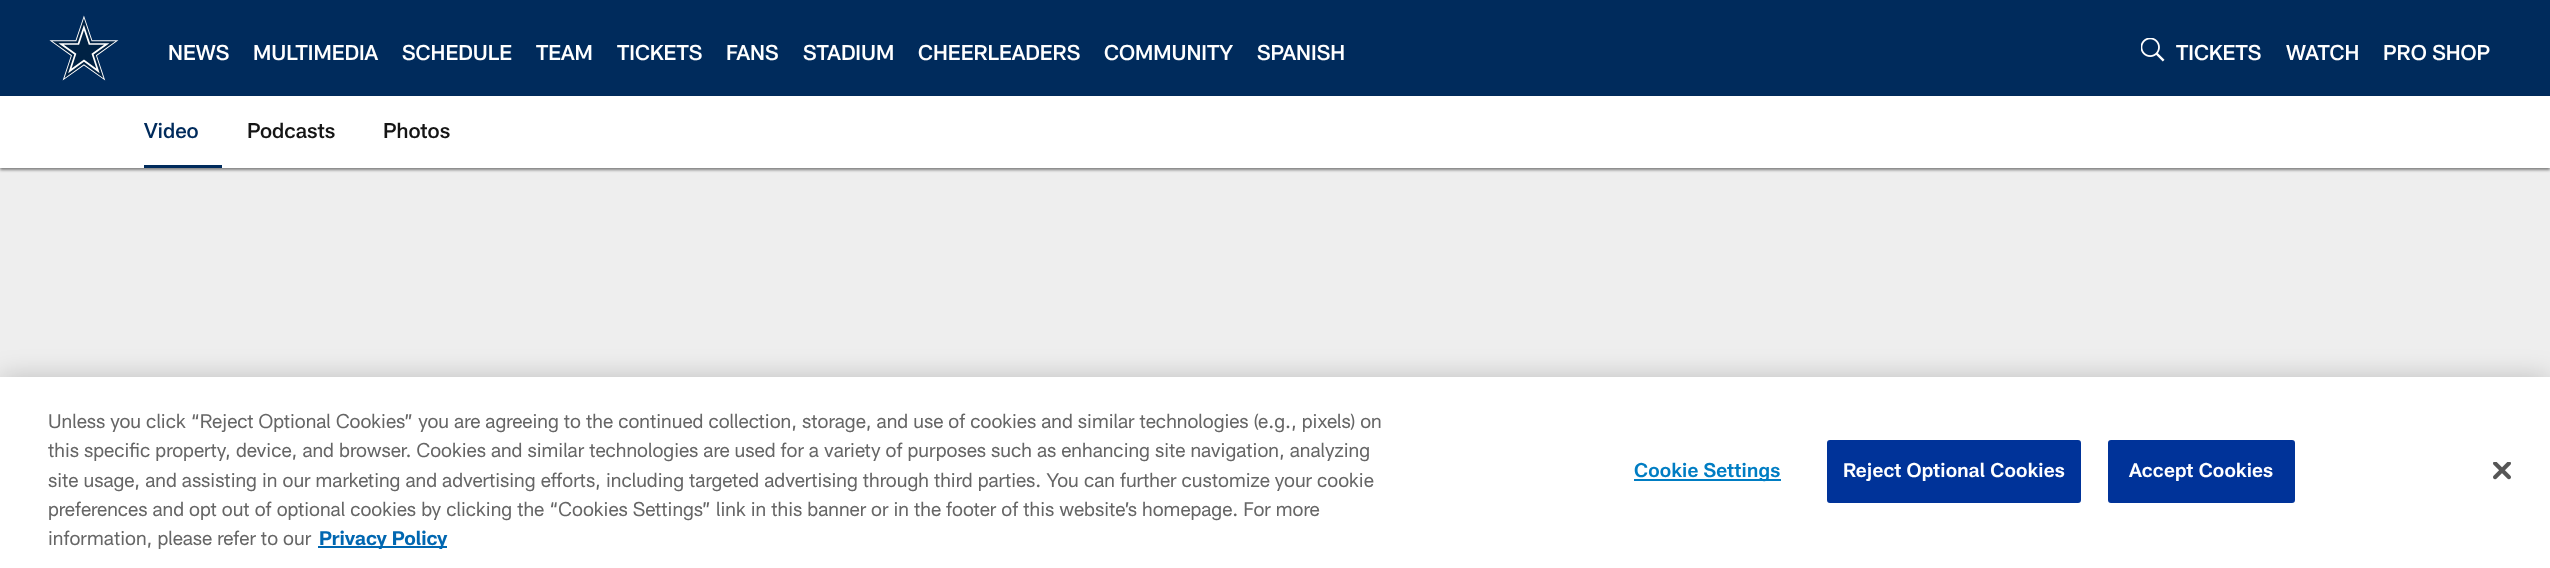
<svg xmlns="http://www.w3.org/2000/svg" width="2550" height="568">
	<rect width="100%" height="100%" fill="#EEEEEE" />
	<rect x="0" y="0" width="2550" height="96" fill="#002B5C" />
	<image x="49" y="15" width="70" height="66" href="assets/img1.png" />
	<g font-family="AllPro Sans" font-size="21" font-weight="500" fill="#FFFFFF">
		<text x="168" y="60">NEWS</text>
		<text x="253" y="60">MULTIMEDIA</text>
		<text x="402" y="60">SCHEDULE</text>
		<text x="536" y="60">TEAM</text>
		<text x="617" y="60">TICKETS</text>
		<text x="726" y="60">FANS</text>
		<text x="803" y="60">STADIUM</text>
		<text x="918" y="60">CHEERLEADERS</text>
		<text x="1104" y="60">COMMUNITY</text>
		<text x="1257" y="60">SPANISH</text>
	</g>
	<image x="2141" y="38" width="24" height="24" href="assets/img2.png" />
	<g font-family="AllPro Sans" font-size="21" font-weight="500" fill="#FFFFFF">
		<text x="2176" y="60">TICKETS</text>
		<text x="2286" y="60">WATCH</text>
		<text x="2383" y="60">PRO SHOP</text>
	</g>
	<rect x="0" y="98" width="2550" height="72" fill="#000000" fill-opacity="0.47" filter="blur(1.5px)" />
	<rect x="0" y="96" width="2550" height="72" fill="#FFFFFF" />
	<rect x="144" y="165" width="78" height="3" fill="#002B5C" />
	<text x="144" y="138" font-family="AllPro Sans" font-size="21" font-weight="500" fill="#002B5C">Video</text>
	<g font-family="AllPro Sans" font-size="21" font-weight="500" fill="#151515">
		<text x="247" y="138">Podcasts</text>
		<text x="383" y="138">Photos</text>
	</g>
	<rect x="0" y="377" width="2550" height="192" fill="#000000" fill-opacity="0.2" filter="blur(13.5px)" />
	<rect x="0" y="377" width="2550" height="191" fill="#FFFFFF" />
	<g font-family="AllPro Sans" font-size="19.5" fill="#666666">
		<text x="48" y="428">Unless you click “Reject Optional Cookies” you are agreeing to the continued collection, storage, and use of cookies and similar technologies (e.g., pixels) on</text>
		<text x="48" y="457">this specific property, device, and browser. Cookies and similar technologies are used for a variety of purposes such as enhancing site navigation, analyzing</text>
		<text x="48" y="487">site usage, and assisting in our marketing and advertising efforts, including targeted advertising through third parties. You can further customize your cookie</text>
		<text x="48" y="516">preferences and opt out of optional cookies by clicking the “Cookies Settings” link in this banner or in the footer of this website’s homepage. For more</text>
		<text x="48" y="545">information, please refer to our</text>
	</g>
	<rect x="318" y="546" width="129" height="2" fill="#0067B1" />
	<text x="319" y="545" font-family="AllPro Sans" font-size="19.5" font-weight="700" fill="#0067B1">Privacy Policy</text>
	<rect x="1634" y="479" width="147" height="2" fill="#007DC3" />
	<text x="1634" y="477" font-family="AllPro Sans" font-size="19.5" font-weight="600" letter-spacing="0.2" fill="#007DC3">Cookie Settings</text>
	<rect x="1828" y="441" width="252" height="61" rx="2" fill="#003399" stroke="#003399" stroke-width="2" />
	<text x="1843" y="477" font-family="AllPro Sans" font-size="19.5" font-weight="600" letter-spacing="0.2" fill="#FFFFFF">Reject Optional Cookies</text>
	<rect x="2109" y="441" width="185" height="61" rx="2" fill="#003399" stroke="#003399" stroke-width="2" />
	<text x="2129" y="477" font-family="AllPro Sans" font-size="19.5" font-weight="600" letter-spacing="0.2" fill="#FFFFFF">Accept Cookies</text>
	<image x="2493" y="462" width="18" height="18" href="assets/img3.png" />
</svg>
